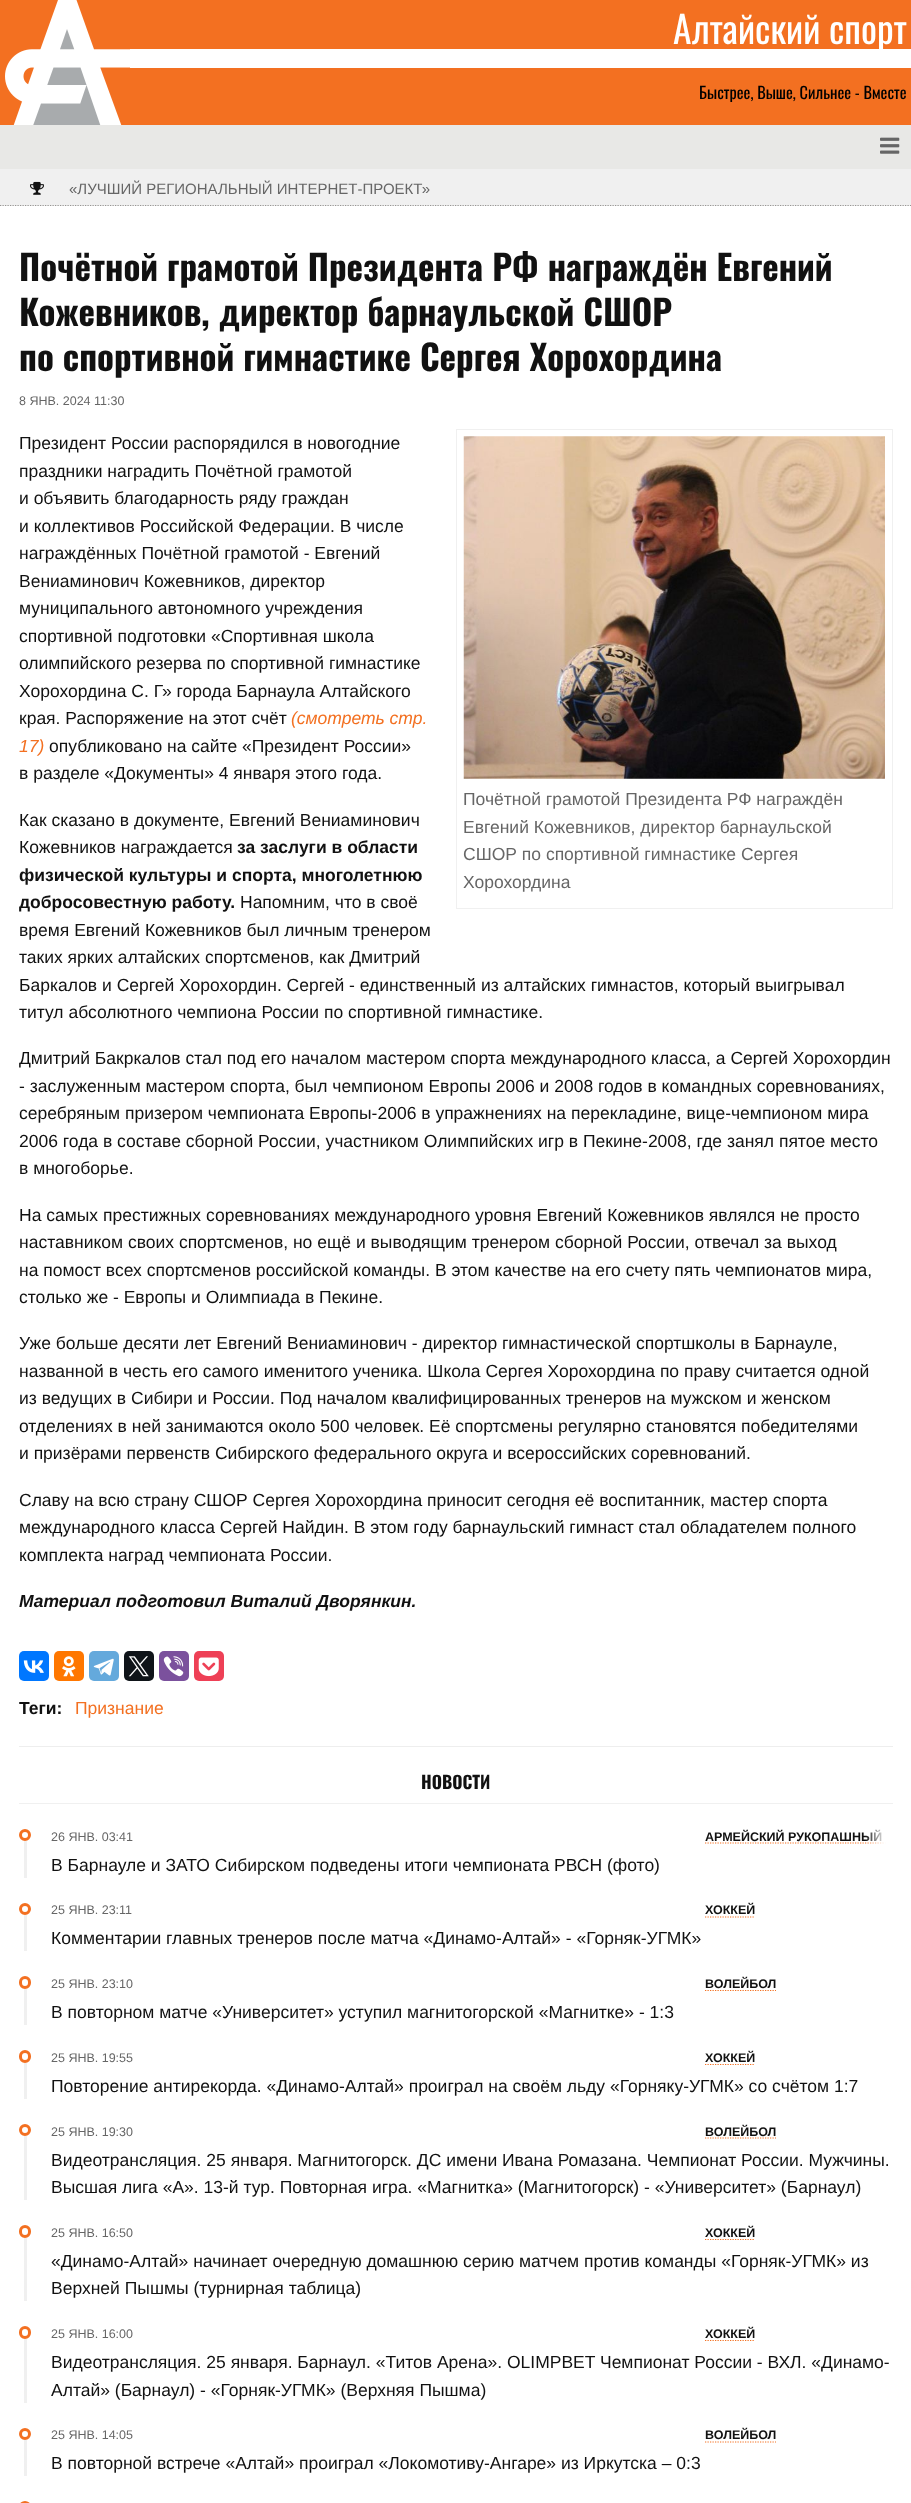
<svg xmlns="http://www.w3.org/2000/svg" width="911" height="2503">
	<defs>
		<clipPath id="clip1"><rect x="19" y="244" width="874" height="1477" /></clipPath>
		<clipPath id="clip2"><rect x="705" y="1823" width="188" height="27" /></clipPath>
		<linearGradient id="g1" gradientUnits="userSpaceOnUse" x1="865" y1="1836" x2="893" y2="1836"><stop offset="0" stop-color="#FFFFFF" stop-opacity="0" /><stop offset="0.75" stop-color="#FFFFFF" /></linearGradient>
	</defs>
	<rect width="100%" height="100%" fill="#FFFFFF" />
	<rect x="130" y="0" width="781" height="125" fill="#F37021" />
	<rect x="130" y="49" width="781" height="19" fill="#FFFFFF" />
	<image x="0" y="0" width="130" height="125" href="assets/img1.png" />
	<text x="673" y="44" font-family="Oswald" font-size="37.5" fill="#FFFFFF">Алтайский спорт</text>
	<text x="699" y="99" font-family="Oswald" font-size="16.25" fill="#000000">Быстрее, Выше, Сильнее - Вместе</text>
	<rect x="0" y="125" width="911" height="44" fill="#E8E8E6" />
	<image x="880" y="137" width="20" height="17" href="assets/img2.png" />
	<rect x="0" y="169" width="911" height="37" fill="#F0F0F0" />
	<path d="M0 205.5H911" fill="none" stroke="#969593" stroke-width="1.2" stroke-dasharray="1.25 1.25" />
	<image x="30" y="181" width="14" height="14" href="assets/img3.png" />
	<text x="69" y="194" font-family="Liberation Sans" font-size="15" fill="#666666">«ЛУЧШИЙ РЕГИОНАЛЬНЫЙ ИНТЕРНЕТ-ПРОЕКТ»</text>
	<g font-family="Oswald" font-size="35" font-weight="700" fill="#111111">
		<text x="19" y="281">Почётной грамотой Президента РФ награждён Евгений</text>
		<text x="19" y="326">Кожевников, директор барнаульской СШОР</text>
		<text x="19" y="371">по спортивной гимнастике Сергея Хорохордина</text>
	</g>
	<text x="19" y="405" font-family="Liberation Sans" font-size="12.5" fill="#666666">8 ЯНВ. 2024 11:30</text>
	<g font-family="Liberation Sans" font-size="17.5" fill="#111111">
		<text x="19" y="449">Президент России распорядился в новогодние</text>
		<text x="19" y="477">праздники наградить Почётной грамотой</text>
		<text x="19" y="504">и объявить благодарность ряду граждан</text>
		<text x="19" y="532">и коллективов Российской Федерации. В числе</text>
		<text x="19" y="559">награждённых Почётной грамотой - Евгений</text>
		<text x="19" y="587">Вениаминович Кожевников, директор</text>
		<text x="19" y="614">муниципального автономного учреждения</text>
		<text x="19" y="642">спортивной подготовки «Спортивная школа</text>
		<text x="19" y="669">олимпийского резерва по спортивной гимнастике</text>
		<text x="19" y="697">Хорохордина С. Г» города Барнаула Алтайского</text>
		<text x="19" y="724">края. Распоряжение на этот счёт</text>
	</g>
	<g font-family="Liberation Sans" font-size="17.5" font-style="italic" fill="#F37021">
		<text x="291" y="724">(смотреть стр.</text>
		<text x="19" y="752">17)</text>
	</g>
	<g font-family="Liberation Sans" font-size="17.5" fill="#111111">
		<text x="49" y="752">опубликовано на сайте «Президент России»</text>
		<text x="19" y="779">в разделе «Документы» 4 января этого года.</text>
		<text x="19" y="826">Как сказано в документе, Евгений Вениаминович</text>
		<text x="19" y="853">Кожевников награждается</text>
	</g>
	<g font-family="Liberation Sans" font-size="17.5" font-weight="700" fill="#111111">
		<text x="237" y="853">за заслуги в области</text>
		<text x="19" y="881">физической культуры и спорта, многолетнюю</text>
	</g>
	<g clip-path="url(#clip1)">
		<text x="19" y="908" font-family="Liberation Sans" font-size="17.5" font-weight="700" fill="#111111">добросовестную работу.</text>
	</g>
	<g font-family="Liberation Sans" font-size="17.5" fill="#111111">
		<text x="240" y="908">Напомним, что в своё</text>
		<text x="19" y="936">время Евгений Кожевников был личным тренером</text>
		<text x="19" y="963">таких ярких алтайских спортсменов, как Дмитрий</text>
		<text x="19" y="991">Баркалов и Сергей Хорохордин. Сергей - единственный из алтайских гимнастов, который выигрывал</text>
		<text x="19" y="1018">титул абсолютного чемпиона России по спортивной гимнастике.</text>
	</g>
	<g clip-path="url(#clip1)">
		<text x="19" y="1064" font-family="Liberation Sans" font-size="17.5" fill="#111111">Дмитрий Бакркалов стал под его началом мастером спорта международного класса, а Сергей Хорохордин</text>
	</g>
	<g font-family="Liberation Sans" font-size="17.5" fill="#111111">
		<text x="19" y="1092">- заслуженным мастером спорта, был чемпионом Европы 2006 и 2008 годов в командных соревнованиях,</text>
		<text x="19" y="1119">серебряным призером чемпионата Европы-2006 в упражнениях на перекладине, вице-чемпионом мира</text>
		<text x="19" y="1147">2006 года в составе сборной России, участником Олимпийских игр в Пекине-2008, где занял пятое место</text>
		<text x="19" y="1174">в многоборье.</text>
		<text x="19" y="1221">На самых престижных соревнованиях международного уровня Евгений Кожевников являлся не просто</text>
		<text x="19" y="1248">наставником своих спортсменов, но ещё и выводящим тренером сборной России, отвечал за выход</text>
		<text x="19" y="1276">на помост всех спортсменов российской команды. В этом качестве на его счету пять чемпионатов мира,</text>
		<text x="19" y="1303">столько же - Европы и Олимпиада в Пекине.</text>
		<text x="19" y="1349">Уже больше десяти лет Евгений Вениаминович - директор гимнастической спортшколы в Барнауле,</text>
		<text x="19" y="1377">названной в честь его самого именитого ученика. Школа Сергея Хорохордина по праву считается одной</text>
		<text x="19" y="1404">из ведущих в Сибири и России. Под началом квалифицированных тренеров на мужском и женском</text>
		<text x="19" y="1432">отделениях в ней занимаются около 500 человек. Её спортсмены регулярно становятся победителями</text>
		<text x="19" y="1459">и призёрами первенств Сибирского федерального округа и всероссийских соревнований.</text>
		<text x="19" y="1506">Славу на всю страну СШОР Сергея Хорохордина приносит сегодня её воспитанник, мастер спорта</text>
		<text x="19" y="1533">международного класса Сергей Найдин. В этом году барнаульский гимнаст стал обладателем полного</text>
		<text x="19" y="1561">комплекта наград чемпионата России.</text>
	</g>
	<text x="19" y="1607" font-family="Liberation Sans" font-size="17.5" font-weight="700" font-style="italic" fill="#111111">Материал подготовил Виталий Дворянкин.</text>
	<rect x="456.5" y="429.5" width="436" height="479" fill="none" stroke="#F0F0F0" />
	<image x="463" y="436" width="422" height="343" href="assets/img4.png" />
	<g font-family="Liberation Sans" font-size="17.5" fill="#666666">
		<text x="463" y="805">Почётной грамотой Президента РФ награждён</text>
		<text x="463" y="833">Евгений Кожевников, директор барнаульской</text>
		<text x="463" y="860">СШОР по спортивной гимнастике Сергея</text>
		<text x="463" y="888">Хорохордина</text>
	</g>
	<rect x="19" y="1651" width="30" height="30" rx="5" fill="#0077FF" />
	<image x="23" y="1660" width="21" height="13" href="assets/img5.png" />
	<rect x="54" y="1651" width="30" height="30" rx="5" fill="#FF7700" />
	<image x="62" y="1656" width="14" height="21" href="assets/img6.png" />
	<rect x="89" y="1651" width="30" height="30" rx="5" fill="#64A9DC" />
	<image x="93" y="1658" width="21" height="18" href="assets/img7.png" />
	<rect x="124" y="1651" width="30" height="30" rx="5" fill="#0F1419" />
	<image x="128" y="1656" width="21" height="21" href="assets/img8.png" />
	<rect x="159" y="1651" width="30" height="30" rx="5" fill="#7B519D" />
	<image x="163" y="1656" width="21" height="21" href="assets/img9.png" />
	<rect x="194" y="1651" width="30" height="30" rx="5" fill="#EE4056" />
	<image x="198" y="1657" width="21" height="20" href="assets/img10.png" />
	<text x="19" y="1714" font-family="Liberation Sans" font-size="17.5" font-weight="700" fill="#111111">Теги:</text>
	<text x="75" y="1714" font-family="Liberation Sans" font-size="17.5" fill="#F37021">Признание</text>
	<rect x="19" y="1746" width="874" height="1" fill="#EEEEEE" />
	<rect x="19" y="1803" width="874" height="1" fill="#F0F0F0" />
	<text x="421" y="1789" font-family="Oswald" font-size="17.5" font-weight="700" fill="#111111">НОВОСТИ</text>
	<rect x="24" y="1841" width="3" height="37" fill="#F0F0F0" />
	<circle cx="25" cy="1835" r="4.5" fill="none" stroke="#F37021" stroke-width="3" />
	<text x="51" y="1841" font-family="Liberation Sans" font-size="12.5" fill="#666666">26 ЯНВ. 03:41</text>
	<text x="705" y="1841" font-family="Liberation Sans" font-size="12.5" font-weight="700" fill="#111111">АРМЕЙСКИЙ РУКОПАШНЫЙ</text>
	<g clip-path="url(#clip2)">
		<path d="M705 1843H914" fill="none" stroke="#F37021" stroke-width="1.2" stroke-dasharray="1.25 1.25" />
	</g>
	<rect x="865" y="1829" width="28" height="15" fill="url(#g1)" />
	<text x="51" y="1871" font-family="Liberation Sans" font-size="17.5" fill="#111111">В Барнауле и ЗАТО Сибирском подведены итоги чемпионата РВСН (фото)</text>
	<rect x="24" y="1915" width="3" height="36" fill="#F0F0F0" />
	<circle cx="25" cy="1909" r="4.5" fill="none" stroke="#F37021" stroke-width="3" />
	<text x="51" y="1914" font-family="Liberation Sans" font-size="12.5" fill="#666666">25 ЯНВ. 23:11</text>
	<text x="705" y="1914" font-family="Liberation Sans" font-size="12.5" font-weight="700" fill="#111111">ХОККЕЙ</text>
	<path d="M705 1917H755" fill="none" stroke="#F37021" stroke-width="1.2" stroke-dasharray="1.25 1.25" />
	<text x="51" y="1944" font-family="Liberation Sans" font-size="17.5" fill="#111111">Комментарии главных тренеров после матча «Динамо-Алтай» - «Горняк-УГМК»</text>
	<rect x="24" y="1989" width="3" height="36" fill="#F0F0F0" />
	<rect x="20.5" y="1977.5" width="9" height="10" rx="4.5" fill="none" stroke="#F37021" stroke-width="3" />
	<text x="51" y="1988" font-family="Liberation Sans" font-size="12.5" fill="#666666">25 ЯНВ. 23:10</text>
	<text x="705" y="1988" font-family="Liberation Sans" font-size="12.5" font-weight="700" fill="#111111">ВОЛЕЙБОЛ</text>
	<path d="M705 1990.5H776" fill="none" stroke="#F37021" stroke-width="1.2" stroke-dasharray="1.25 1.25" />
	<text x="51" y="2018" font-family="Liberation Sans" font-size="17.5" fill="#111111">В повторном матче «Университет» уступил магнитогорской «Магнитке» - 1:3</text>
	<rect x="24" y="2063" width="3" height="36" fill="#F0F0F0" />
	<rect x="20.5" y="2051.5" width="9" height="10" rx="4.5" fill="none" stroke="#F37021" stroke-width="3" />
	<text x="51" y="2062" font-family="Liberation Sans" font-size="12.5" fill="#666666">25 ЯНВ. 19:55</text>
	<text x="705" y="2062" font-family="Liberation Sans" font-size="12.5" font-weight="700" fill="#111111">ХОККЕЙ</text>
	<path d="M705 2064.5H755" fill="none" stroke="#F37021" stroke-width="1.2" stroke-dasharray="1.25 1.25" />
	<text x="51" y="2092" font-family="Liberation Sans" font-size="17.5" fill="#111111">Повторение антирекорда. «Динамо-Алтай» проиграл на своём льду «Горняку-УГМК» со счётом 1:7</text>
	<rect x="24" y="2136" width="3" height="64" fill="#F0F0F0" />
	<circle cx="25" cy="2130" r="4.5" fill="none" stroke="#F37021" stroke-width="3" />
	<text x="51" y="2136" font-family="Liberation Sans" font-size="12.5" fill="#666666">25 ЯНВ. 19:30</text>
	<text x="705" y="2136" font-family="Liberation Sans" font-size="12.5" font-weight="700" fill="#111111">ВОЛЕЙБОЛ</text>
	<path d="M705 2138H776" fill="none" stroke="#F37021" stroke-width="1.2" stroke-dasharray="1.25 1.25" />
	<g font-family="Liberation Sans" font-size="17.5" fill="#111111">
		<text x="51" y="2166">Видеотрансляция. 25 января. Магнитогорск. ДС имени Ивана Ромазана. Чемпионат России. Мужчины.</text>
		<text x="51" y="2193">Высшая лига «А». 13-й тур. Повторная игра. «Магнитка» (Магнитогорск) - «Университет» (Барнаул)</text>
	</g>
	<rect x="24" y="2238" width="3" height="63" fill="#F0F0F0" />
	<rect x="20.5" y="2226.5" width="9" height="10" rx="4.5" fill="none" stroke="#F37021" stroke-width="3" />
	<text x="51" y="2237" font-family="Liberation Sans" font-size="12.5" fill="#666666">25 ЯНВ. 16:50</text>
	<text x="705" y="2237" font-family="Liberation Sans" font-size="12.5" font-weight="700" fill="#111111">ХОККЕЙ</text>
	<path d="M705 2239.5H755" fill="none" stroke="#F37021" stroke-width="1.2" stroke-dasharray="1.25 1.25" />
	<g font-family="Liberation Sans" font-size="17.5" fill="#111111">
		<text x="51" y="2267">«Динамо-Алтай» начинает очередную домашнюю серию матчем против команды «Горняк-УГМК» из</text>
		<text x="51" y="2294">Верхней Пышмы (турнирная таблица)</text>
	</g>
	<rect x="24" y="2339" width="3" height="64" fill="#F0F0F0" />
	<rect x="20.5" y="2327.5" width="9" height="10" rx="4.5" fill="none" stroke="#F37021" stroke-width="3" />
	<text x="51" y="2338" font-family="Liberation Sans" font-size="12.5" fill="#666666">25 ЯНВ. 16:00</text>
	<text x="705" y="2338" font-family="Liberation Sans" font-size="12.5" font-weight="700" fill="#111111">ХОККЕЙ</text>
	<path d="M705 2340.5H755" fill="none" stroke="#F37021" stroke-width="1.2" stroke-dasharray="1.25 1.25" />
	<g font-family="Liberation Sans" font-size="17.5" fill="#111111">
		<text x="51" y="2368">Видеотрансляция. 25 января. Барнаул. «Титов Арена». OLIMPBET Чемпионат России - ВХЛ. «Динамо-</text>
		<text x="51" y="2396">Алтай» (Барнаул) - «Горняк-УГМК» (Верхняя Пышма)</text>
	</g>
	<rect x="24" y="2440" width="3" height="36" fill="#F0F0F0" />
	<circle cx="25" cy="2434" r="4.5" fill="none" stroke="#F37021" stroke-width="3" />
	<text x="51" y="2439" font-family="Liberation Sans" font-size="12.5" fill="#666666">25 ЯНВ. 14:05</text>
	<text x="705" y="2439" font-family="Liberation Sans" font-size="12.5" font-weight="700" fill="#111111">ВОЛЕЙБОЛ</text>
	<path d="M705 2442H776" fill="none" stroke="#F37021" stroke-width="1.2" stroke-dasharray="1.25 1.25" />
	<text x="51" y="2469" font-family="Liberation Sans" font-size="17.5" fill="#111111">В повторной встрече «Алтай» проиграл «Локомотиву-Ангаре» из Иркутска – 0:3</text>
	<rect x="20.5" y="2502.5" width="9" height="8" rx="4.5" fill="none" stroke="#F37021" stroke-width="3" />
</svg>
